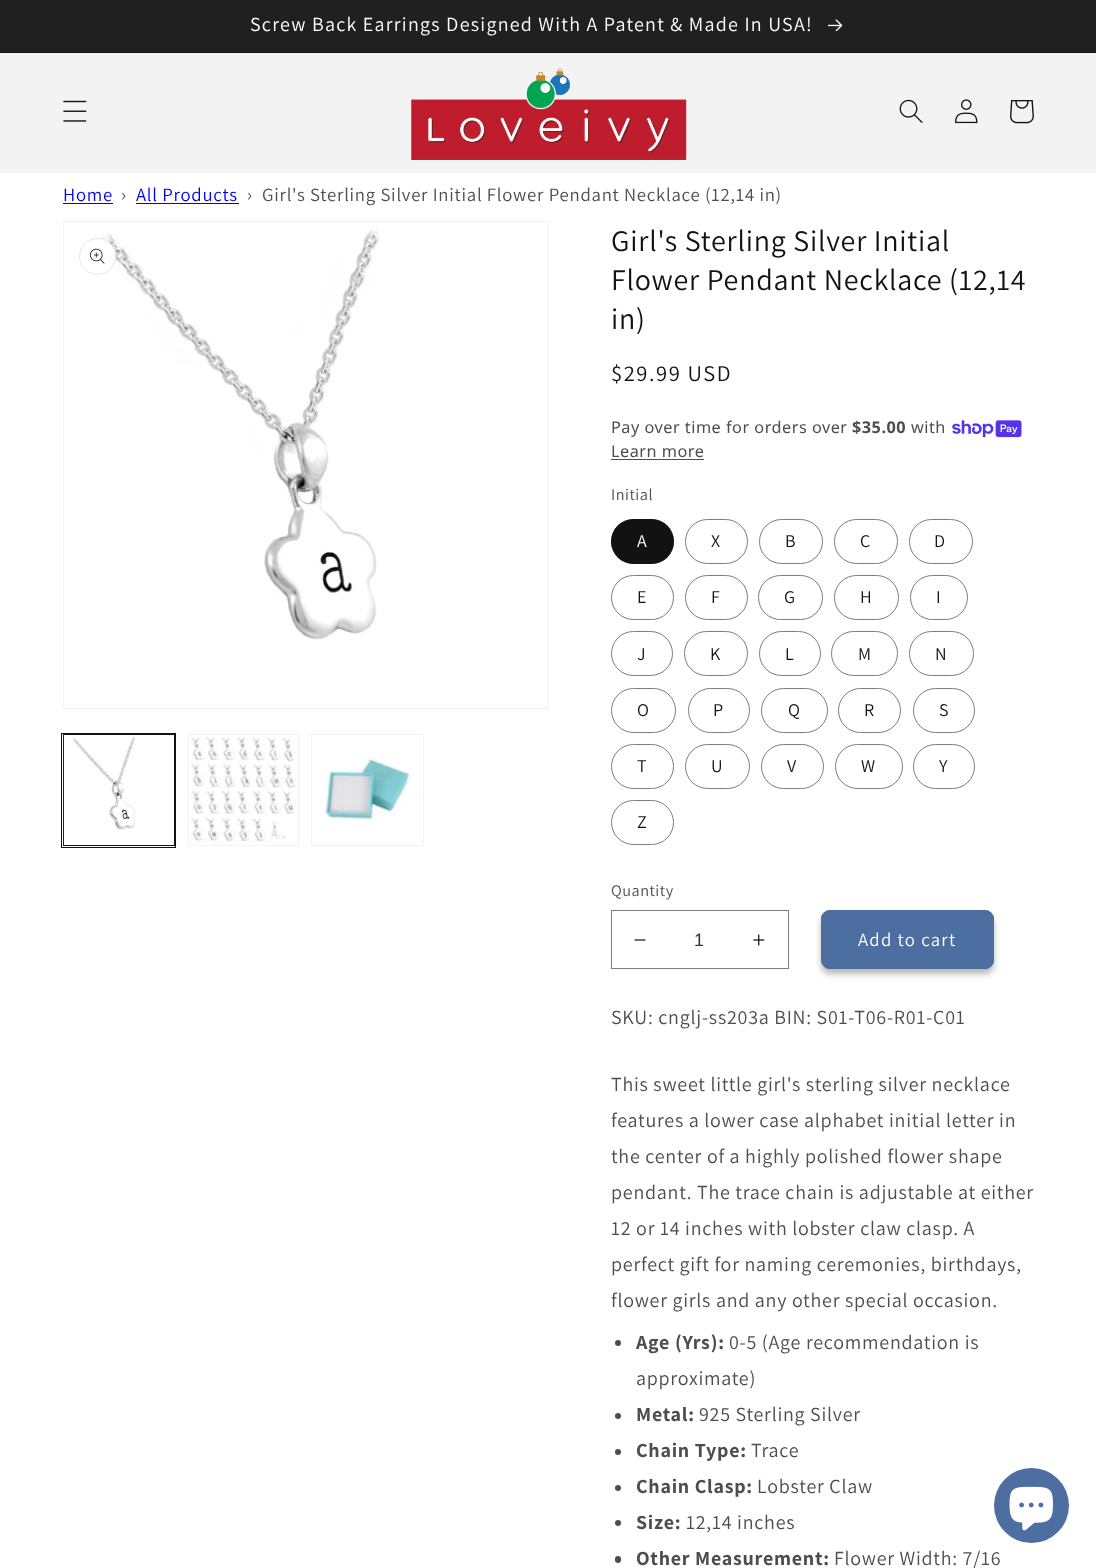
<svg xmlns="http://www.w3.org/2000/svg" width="1096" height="1568">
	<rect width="100%" height="100%" fill="#FFFFFF" />
	<rect x="0" y="52" width="1096" height="1" fill="#121212" />
	<rect x="0" y="51" width="1096" height="1" fill="#252525" />
	<rect x="0" y="0" width="1096" height="51" fill="#202020" />
	<text x="250" y="31" font-family="Assistant" font-size="20" letter-spacing="1.25" fill="#FFFFFF">Screw Back Earrings Designed With A Patent &amp; Made In USA!</text>
	<image x="828" y="19" width="15" height="12" href="assets/img1.png" />
	<rect x="0" y="53" width="1096" height="120" fill="#F3F3F3" />
	<image x="63" y="100" width="24" height="22" href="assets/img2.png" />
	<image x="411" y="66" width="276" height="94" href="assets/img3.png" />
	<image x="899" y="99" width="24" height="24" href="assets/img4.png" />
	<image x="955" y="99" width="23" height="25" href="assets/img5.png" />
	<image x="1010" y="100" width="24" height="24" href="assets/img6.png" />
	<text x="63" y="201" font-family="Assistant" font-size="18.75" letter-spacing="0.75" fill="#0000EE">Home</text>
	<rect x="63" y="203" width="50" height="1" fill="#0000EE" />
	<text x="121" y="201" font-family="Assistant" font-size="18.75" letter-spacing="0.75" fill="#4D4D4D">›</text>
	<text x="136" y="201" font-family="Assistant" font-size="18.75" letter-spacing="0.75" fill="#0000EE">All Products</text>
	<rect x="136" y="203" width="103" height="1" fill="#0000EE" />
	<g font-family="Assistant" font-size="18.75" letter-spacing="0.75" fill="#4D4D4D">
		<text x="247" y="201">›</text>
		<text x="262" y="201">Girl's Sterling Silver Initial Flower Pendant Necklace (12,14 in)</text>
	</g>
	<rect x="63.5" y="221.5" width="485" height="487" fill="none" stroke="#F3F3F3" />
	<image x="100" y="227" width="279" height="413" href="assets/img7.png" />
	<circle cx="97.5" cy="256.5" r="18.5" fill="#FFFFFF" />
	<circle cx="97.5" cy="256.5" r="18" fill="none" stroke="#121212" stroke-opacity="0.1" />
	<image x="90" y="248" width="15" height="16" href="assets/img8.png" />
	<rect x="61.5" y="733.5" width="114" height="114" fill="none" stroke="#121212" />
	<rect x="63.5" y="734.5" width="111" height="111" fill="none" stroke="#121212" />
	<image x="63" y="735" width="73" height="110" href="assets/img9.png" />
	<rect x="188.5" y="734.5" width="110" height="111" fill="none" stroke="#F3F3F3" />
	<image x="190" y="737" width="106" height="105" href="assets/img10.png" />
	<rect x="311.5" y="734.5" width="112" height="111" fill="none" stroke="#F3F3F3" />
	<image x="325" y="758" width="87" height="62" href="assets/img11.png" />
	<g font-family="Assistant" font-size="30" letter-spacing="0.75" fill="#121212">
		<text x="611" y="251">Girl's Sterling Silver Initial</text>
		<text x="611" y="290">Flower Pendant Necklace (12,14</text>
		<text x="611" y="329">in)</text>
	</g>
	<text x="611" y="381" font-family="Assistant" font-size="22.5" letter-spacing="1.6" fill="#121212">$29.99 USD</text>
	<text x="611" y="433" font-family="Noto Sans" font-size="16.25" letter-spacing="0.5" fill="#4D4D4D">Pay over time for orders over</text>
	<text x="852" y="433" font-family="Noto Sans" font-size="16.25" font-weight="700" letter-spacing="0.5" fill="#4D4D4D">$35.00</text>
	<text x="911" y="433" font-family="Noto Sans" font-size="16.25" letter-spacing="0.5" fill="#4D4D4D">with</text>
	<image x="952" y="420" width="70" height="18" href="assets/img12.png" />
	<text x="611" y="457" font-family="Noto Sans" font-size="16.25" letter-spacing="0.5" fill="#4D4D4D">Learn more</text>
	<rect x="611" y="459" width="93" height="1" fill="#4D4D4D" />
	<text x="611" y="500" font-family="Assistant" font-size="16.25" letter-spacing="0.5" fill="#4D4D4D">Initial</text>
	<rect x="611" y="519" width="63" height="45" rx="22.5" fill="#121212" />
	<rect x="611.5" y="519.5" width="62" height="44" rx="22" fill="none" stroke="#121212" stroke-opacity="0.55" />
	<text x="637" y="547" font-family="Assistant" font-size="18" letter-spacing="1.25" fill="#FFFFFF">A</text>
	<rect x="685.5" y="519.5" width="62" height="44" rx="22" fill="none" stroke="#7D7D7D" />
	<text x="711" y="547" font-family="Assistant" font-size="18" letter-spacing="1.25" fill="#121212">X</text>
	<rect x="759.5" y="519.5" width="63" height="44" rx="22" fill="none" stroke="#7D7D7D" />
	<text x="785" y="547" font-family="Assistant" font-size="18" letter-spacing="1.25" fill="#121212">B</text>
	<rect x="834.5" y="519.5" width="63" height="44" rx="22" fill="none" stroke="#7D7D7D" />
	<text x="860" y="547" font-family="Assistant" font-size="18" letter-spacing="1.25" fill="#121212">C</text>
	<rect x="909.5" y="519.5" width="63" height="44" rx="22" fill="none" stroke="#7D7D7D" />
	<text x="934" y="547" font-family="Assistant" font-size="18" letter-spacing="1.25" fill="#121212">D</text>
	<rect x="611.5" y="575.5" width="62" height="44" rx="22" fill="none" stroke="#7D7D7D" />
	<text x="637" y="603" font-family="Assistant" font-size="18" letter-spacing="1.25" fill="#121212">E</text>
	<rect x="685.5" y="575.5" width="62" height="44" rx="22" fill="none" stroke="#7D7D7D" />
	<text x="711" y="603" font-family="Assistant" font-size="18" letter-spacing="1.25" fill="#121212">F</text>
	<rect x="758.5" y="575.5" width="64" height="44" rx="22" fill="none" stroke="#7D7D7D" />
	<text x="784" y="603" font-family="Assistant" font-size="18" letter-spacing="1.25" fill="#121212">G</text>
	<rect x="834.5" y="575.5" width="64" height="44" rx="22" fill="none" stroke="#7D7D7D" />
	<text x="860" y="603" font-family="Assistant" font-size="18" letter-spacing="1.25" fill="#121212">H</text>
	<rect x="910.5" y="575.5" width="57" height="44" rx="22" fill="none" stroke="#7D7D7D" />
	<text x="936" y="603" font-family="Assistant" font-size="18" letter-spacing="1.25" fill="#121212">I</text>
	<rect x="611.5" y="631.5" width="61" height="44" rx="22" fill="none" stroke="#7D7D7D" />
	<text x="637" y="660" font-family="Assistant" font-size="18" letter-spacing="1.25" fill="#121212">J</text>
	<rect x="684.5" y="631.5" width="63" height="44" rx="22" fill="none" stroke="#7D7D7D" />
	<text x="710" y="660" font-family="Assistant" font-size="18" letter-spacing="1.25" fill="#121212">K</text>
	<rect x="759.5" y="631.5" width="61" height="44" rx="22" fill="none" stroke="#7D7D7D" />
	<text x="785" y="660" font-family="Assistant" font-size="18" letter-spacing="1.25" fill="#121212">L</text>
	<rect x="831.5" y="631.5" width="66" height="44" rx="22" fill="none" stroke="#7D7D7D" />
	<text x="858" y="660" font-family="Assistant" font-size="18" letter-spacing="1.25" fill="#121212">M</text>
	<rect x="909.5" y="631.5" width="64" height="44" rx="22" fill="none" stroke="#7D7D7D" />
	<text x="935" y="660" font-family="Assistant" font-size="18" letter-spacing="1.25" fill="#121212">N</text>
	<rect x="611.5" y="688.5" width="64" height="44" rx="22" fill="none" stroke="#7D7D7D" />
	<text x="637" y="716" font-family="Assistant" font-size="18" letter-spacing="1.25" fill="#121212">O</text>
	<rect x="688.5" y="688.5" width="61" height="44" rx="22" fill="none" stroke="#7D7D7D" />
	<text x="713" y="716" font-family="Assistant" font-size="18" letter-spacing="1.25" fill="#121212">P</text>
	<rect x="761.5" y="688.5" width="66" height="44" rx="22" fill="none" stroke="#7D7D7D" />
	<text x="788" y="716" font-family="Assistant" font-size="18" letter-spacing="1.25" fill="#121212">Q</text>
	<rect x="838.5" y="688.5" width="62" height="44" rx="22" fill="none" stroke="#7D7D7D" />
	<text x="864" y="716" font-family="Assistant" font-size="18" letter-spacing="1.25" fill="#121212">R</text>
	<rect x="913.5" y="688.5" width="61" height="44" rx="22" fill="none" stroke="#7D7D7D" />
	<text x="939" y="716" font-family="Assistant" font-size="18" letter-spacing="1.25" fill="#121212">S</text>
	<rect x="611.5" y="744.5" width="62" height="44" rx="22" fill="none" stroke="#7D7D7D" />
	<text x="637" y="772" font-family="Assistant" font-size="18" letter-spacing="1.25" fill="#121212">T</text>
	<rect x="685.5" y="744.5" width="64" height="44" rx="22" fill="none" stroke="#7D7D7D" />
	<text x="711" y="772" font-family="Assistant" font-size="18" letter-spacing="1.25" fill="#121212">U</text>
	<rect x="761.5" y="744.5" width="62" height="44" rx="22" fill="none" stroke="#7D7D7D" />
	<text x="787" y="772" font-family="Assistant" font-size="18" letter-spacing="1.25" fill="#121212">V</text>
	<rect x="835.5" y="744.5" width="67" height="44" rx="22" fill="none" stroke="#7D7D7D" />
	<text x="861" y="772" font-family="Assistant" font-size="18" letter-spacing="1.25" fill="#121212">W</text>
	<rect x="913.5" y="744.5" width="61" height="44" rx="22" fill="none" stroke="#7D7D7D" />
	<text x="939" y="772" font-family="Assistant" font-size="18" letter-spacing="1.25" fill="#121212">Y</text>
	<rect x="611.5" y="800.5" width="62" height="44" rx="22" fill="none" stroke="#7D7D7D" />
	<text x="637" y="828" font-family="Assistant" font-size="18" letter-spacing="1.25" fill="#121212">Z</text>
	<text x="611" y="896" font-family="Assistant" font-size="16.25" letter-spacing="0.5" fill="#4D4D4D">Quantity</text>
	<image x="634" y="939" width="12" height="2" href="assets/img13.png" />
	<image x="753" y="934" width="12" height="12" href="assets/img14.png" />
	<rect x="611.5" y="910.5" width="177" height="58" fill="none" stroke="#7D7D7D" />
	<text x="694" y="946" font-family="Liberation Sans" font-size="18" fill="#363636">1</text>
	<rect x="821" y="915" width="173" height="59" rx="9" fill="#121212" fill-opacity="0.3" filter="blur(3px)" />
	<rect x="821" y="910" width="173" height="59" rx="9" fill="#4D6EA1" />
	<rect x="821.5" y="910.5" width="172" height="58" rx="8.5" fill="none" stroke="#4D6EA1" />
	<text x="858" y="946" font-family="Assistant" font-size="18.75" letter-spacing="1.25" fill="#FFFFFF">Add to cart</text>
	<g font-family="Assistant" font-size="20" letter-spacing="0.75" fill="#4D4D4D">
		<text x="611" y="1024">SKU: cnglj-ss203a BIN: S01-T06-R01-C01</text>
		<text x="611" y="1091">This sweet little girl's sterling silver necklace</text>
		<text x="611" y="1127">features a lower case alphabet initial letter in</text>
		<text x="611" y="1163">the center of a highly polished flower shape</text>
		<text x="611" y="1199">pendant. The trace chain is adjustable at either</text>
		<text x="611" y="1235">12 or 14 inches with lobster claw clasp. A</text>
		<text x="611" y="1271">perfect gift for naming ceremonies, birthdays,</text>
		<text x="611" y="1307">flower girls and any other special occasion.</text>
	</g>
	<circle cx="618" cy="1343" r="3" fill="#4D4D4D" />
	<text x="636" y="1349" font-family="Assistant" font-size="20" font-weight="700" letter-spacing="0.75" fill="#4D4D4D">Age (Yrs):</text>
	<g font-family="Assistant" font-size="20" letter-spacing="0.75" fill="#4D4D4D">
		<text x="729" y="1349">0-5 (Age recommendation is</text>
		<text x="636" y="1385">approximate)</text>
	</g>
	<circle cx="618" cy="1416" r="3" fill="#4D4D4D" />
	<text x="636" y="1421" font-family="Assistant" font-size="20" font-weight="700" letter-spacing="0.75" fill="#4D4D4D">Metal:</text>
	<text x="699" y="1421" font-family="Assistant" font-size="20" letter-spacing="0.75" fill="#4D4D4D">925 Sterling Silver</text>
	<circle cx="618" cy="1452" r="3" fill="#4D4D4D" />
	<text x="636" y="1457" font-family="Assistant" font-size="20" font-weight="700" letter-spacing="0.75" fill="#4D4D4D">Chain Type:</text>
	<text x="751" y="1457" font-family="Assistant" font-size="20" letter-spacing="0.75" fill="#4D4D4D">Trace</text>
	<circle cx="618" cy="1488" r="3" fill="#4D4D4D" />
	<text x="636" y="1493" font-family="Assistant" font-size="20" font-weight="700" letter-spacing="0.75" fill="#4D4D4D">Chain Clasp:</text>
	<text x="757" y="1493" font-family="Assistant" font-size="20" letter-spacing="0.75" fill="#4D4D4D">Lobster Claw</text>
	<circle cx="618" cy="1523" r="3" fill="#4D4D4D" />
	<text x="636" y="1529" font-family="Assistant" font-size="20" font-weight="700" letter-spacing="0.75" fill="#4D4D4D">Size:</text>
	<text x="686" y="1529" font-family="Assistant" font-size="20" letter-spacing="0.75" fill="#4D4D4D">12,14 inches</text>
	<rect x="615" y="1556" width="6" height="7" rx="3" fill="#4D4D4D" />
	<text x="636" y="1565" font-family="Assistant" font-size="20" font-weight="700" letter-spacing="0.75" fill="#4D4D4D">Other Measurement:</text>
	<text x="834" y="1565" font-family="Assistant" font-size="20" letter-spacing="0.75" fill="#4D4D4D">Flower Width: 7/16</text>
	<circle cx="1031.5" cy="1505.5" r="37.5" fill="#4D6EA1" />
	<image x="1009" y="1486" width="44" height="45" href="assets/img15.png" />
</svg>
